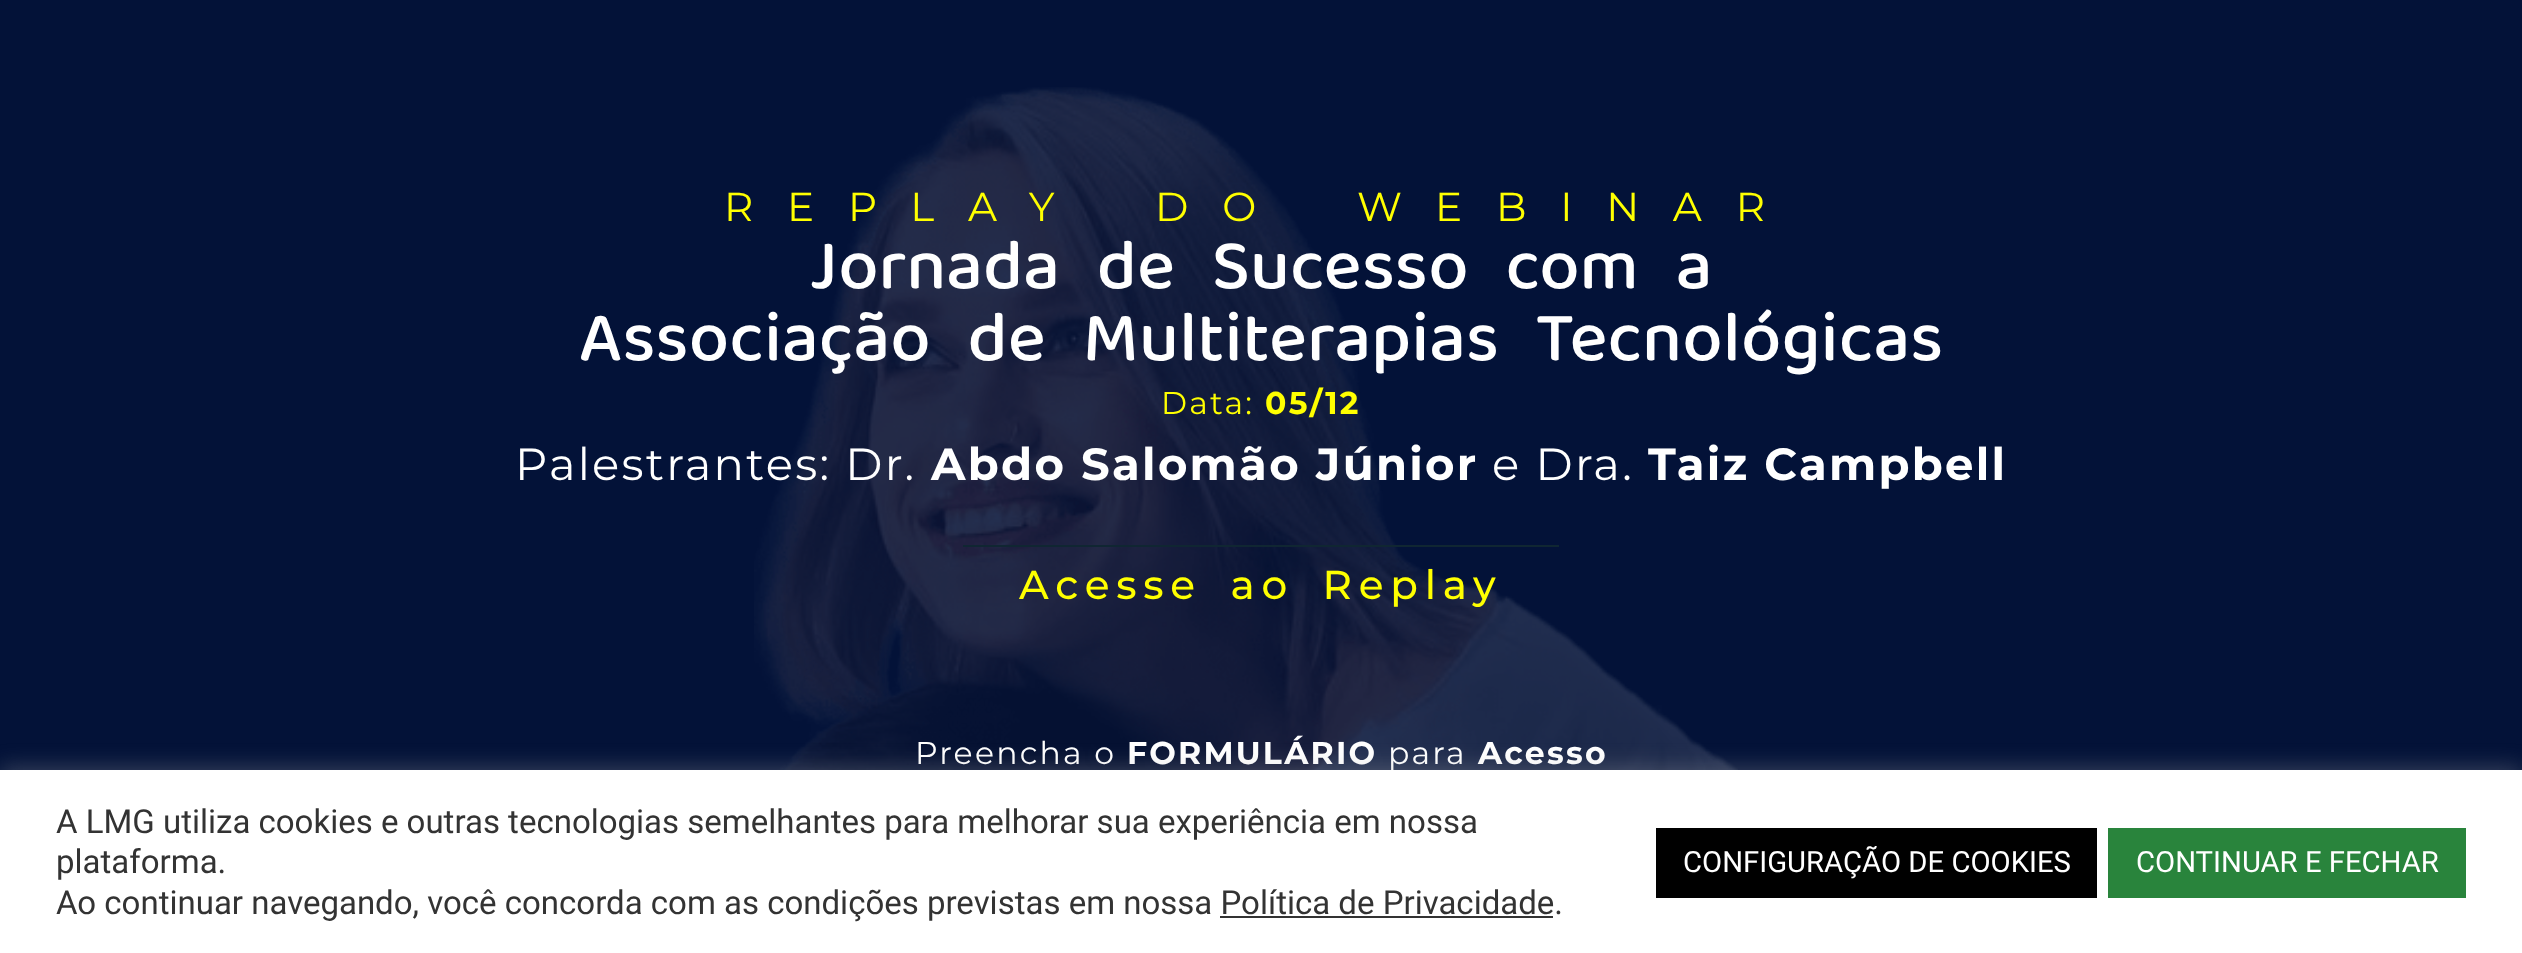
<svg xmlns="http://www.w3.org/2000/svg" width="2522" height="953">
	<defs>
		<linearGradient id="g1" gradientUnits="userSpaceOnUse" x1="1261" y1="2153" x2="1261" y2="0"><stop offset="0.24" stop-color="#520554" /><stop offset="0.58" stop-color="#031238" /></linearGradient>
	</defs>
	<rect width="100%" height="100%" fill="#FFFFFF" />
	<rect x="0" y="0" width="2522" height="770" fill="url(#g1)" />
	<image x="754" y="87" width="984" height="683" href="assets/img1.png" />
	<text x="724" y="221" word-spacing="22.5" font-family="Montserrat" font-size="40.5" letter-spacing="33.75" fill="#FFFF00">REPLAY DO WEBINAR</text>
	<g font-family="'Baloo 2'" font-size="72" font-weight="500" fill="#FFFFFF">
		<text x="810" y="288" word-spacing="22.5">Jornada de Sucesso com a</text>
		<text x="579" y="360" word-spacing="22.5">Associação de Multiterapias Tecnológicas</text>
	</g>
	<text x="1161" y="414" font-family="Montserrat" font-size="31.5" letter-spacing="2.25" fill="#FFFF00">Data:</text>
	<text x="1265" y="414" font-family="Montserrat" font-size="31.5" font-weight="700" letter-spacing="2.25" fill="#FFFF00">05/12</text>
	<text x="515" y="480" font-family="Montserrat" font-size="45" letter-spacing="2.25" fill="#FFFFFF">Palestrantes: Dr.</text>
	<text x="931" y="480" font-family="Montserrat" font-size="45" font-weight="700" letter-spacing="2.25" fill="#FFFFFF">Abdo Salomão Júnior</text>
	<text x="1492" y="480" font-family="Montserrat" font-size="45" letter-spacing="2.25" fill="#FFFFFF">e Dra.</text>
	<text x="1648" y="480" font-family="Montserrat" font-size="45" font-weight="700" letter-spacing="2.25" fill="#FFFFFF">Taiz Campbell</text>
	<rect x="963" y="545" width="596" height="2" fill="#102632" />
	<text x="1019" y="599" word-spacing="11" font-family="Montserrat" font-size="40.5" font-weight="500" letter-spacing="6.75" fill="#FFFF00">Acesse ao Replay</text>
	<text x="915" y="764" font-family="Montserrat" font-size="31.5" letter-spacing="2.25" fill="#FFFFFF">Preencha o</text>
	<text x="1127" y="764" font-family="Montserrat" font-size="31.5" font-weight="700" letter-spacing="2.25" fill="#FFFFFF">FORMULÁRIO</text>
	<text x="1388" y="764" font-family="Montserrat" font-size="31.5" letter-spacing="2.25" fill="#FFFFFF">para</text>
	<text x="1478" y="764" font-family="Montserrat" font-size="31.5" font-weight="700" letter-spacing="2.25" fill="#FFFFFF">Acesso</text>
	<rect x="0" y="767" width="2522" height="185" fill="#ACABAB" fill-opacity="0.3" filter="blur(11px)" />
	<rect x="0" y="770" width="2522" height="183" fill="#FFFFFF" />
	<g font-family="Roboto" font-size="33" fill="#333333">
		<text x="56" y="833">A LMG utiliza cookies e outras tecnologias semelhantes para melhorar sua experiência em nossa</text>
		<text x="56" y="873">plataforma.</text>
		<text x="56" y="914">Ao continuar navegando, você concorda com as condições previstas em nossa Política de Privacidade.</text>
	</g>
	<rect x="1220" y="916" width="333" height="2" fill="#333333" />
	<rect x="1656" y="828" width="441" height="70" fill="#000000" />
	<text x="1683" y="872" font-family="Roboto" font-size="29.25" fill="#FFFFFF">CONFIGURAÇÃO DE COOKIES</text>
	<rect x="2108" y="828" width="358" height="70" fill="#29843C" />
	<text x="2136" y="872" font-family="Roboto" font-size="29.25" fill="#FFFFFF">CONTINUAR E FECHAR</text>
</svg>
